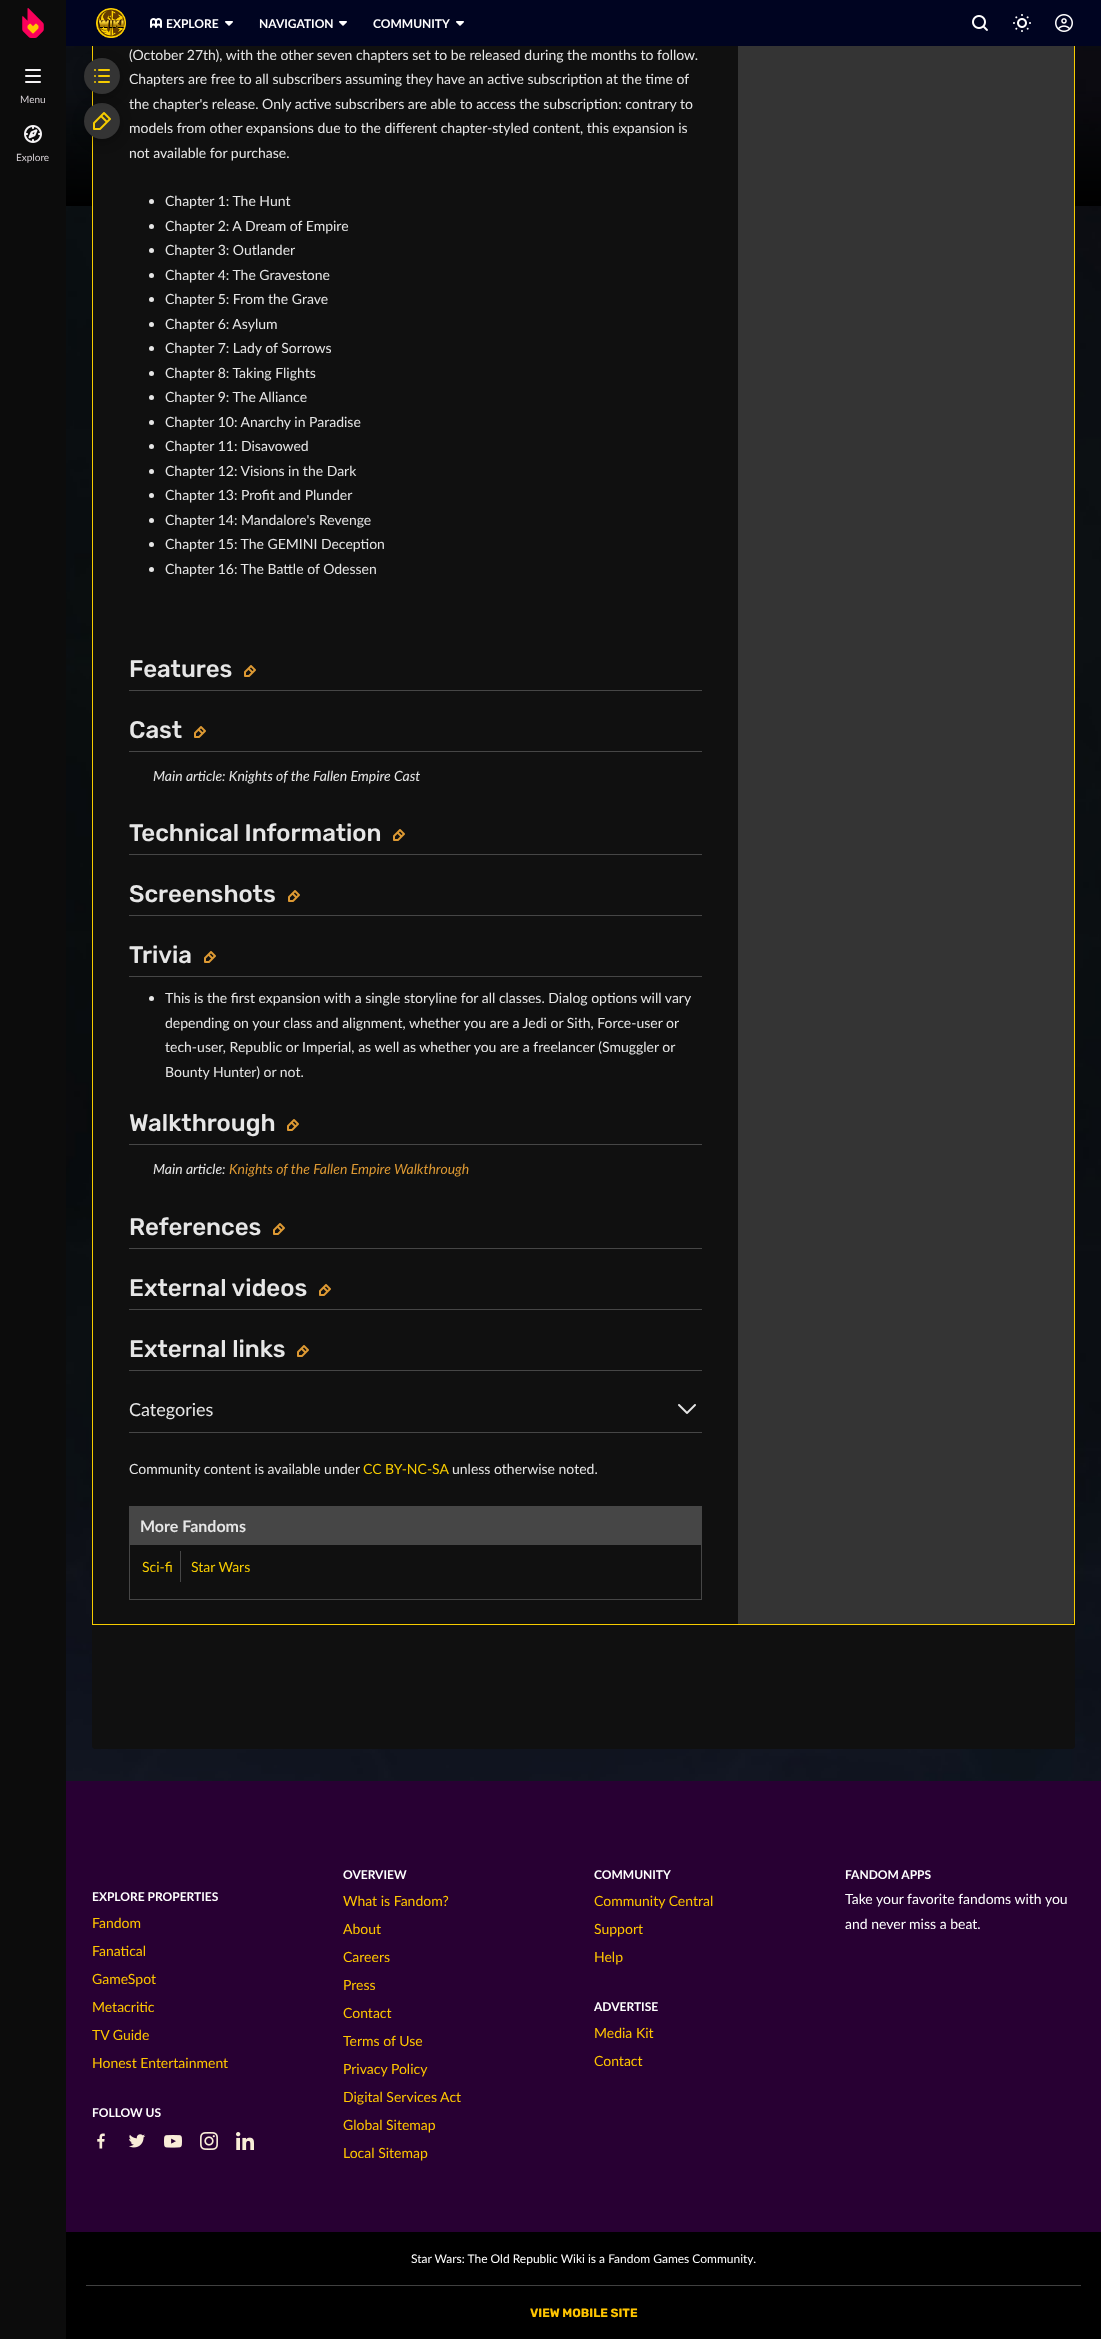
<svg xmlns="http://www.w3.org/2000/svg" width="1101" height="2339">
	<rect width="100%" height="100%" fill="#FFFFFF" />
	<image x="66" y="46" width="1035" height="1735" href="assets/img1.png" />
	<path d="M92 1623H1075V1746C1075 1747.5 1073.5 1749 1072 1749H95C93.5 1749 92 1747.5 92 1746Z" fill="#101010" />
	<rect x="92.5" y="-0.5" width="982" height="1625" fill="none" stroke="#F6CC00" />
	<path d="M96-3H738V1624H96C94.5 1624 93 1622.5 93 1621V0C93-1.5 94.5-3 96-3Z" fill="#101010" />
	<rect x="84" y="106" width="36" height="36" rx="18" fill="#000000" fill-opacity="0.3" filter="blur(6px)" />
	<circle cx="102" cy="121" r="18" fill="#343434" />
	<image x="93" y="112" width="18" height="18" href="assets/img12.png" />
	<rect x="84" y="61" width="36" height="36" rx="18" fill="#000000" fill-opacity="0.3" filter="blur(6px)" />
	<path d="M738-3H1071C1072.5-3 1074-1.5 1074 0V1621C1074 1622.5 1072.5 1624 1071 1624H738Z" fill="#343434" />
	<rect x="66" y="0" width="1035" height="46" fill="#000421" />
	<rect x="0" y="0" width="66" height="2339" fill="#0C0C0C" />
	<image x="22" y="8" width="22" height="30" href="assets/img2.png" />
	<image x="96" y="8" width="30" height="30" href="assets/img3.png" />
	<image x="150" y="18" width="12" height="10" href="assets/img4.png" />
	<text x="166" y="28" font-family="Lato" font-size="12" font-weight="700" fill="#FFFFFF">EXPLORE</text>
	<image x="225" y="21" width="8" height="5" href="assets/img5.png" />
	<text x="259" y="28" font-family="Lato" font-size="12" font-weight="700" fill="#FFFFFF">NAVIGATION</text>
	<image x="339" y="21" width="8" height="5" href="assets/img5.png" />
	<text x="373" y="28" font-family="Lato" font-size="12" font-weight="700" fill="#FFFFFF">COMMUNITY</text>
	<image x="456" y="21" width="8" height="5" href="assets/img5.png" />
	<image x="972" y="15" width="16" height="16" href="assets/img6.png" />
	<image x="1013" y="14" width="18" height="18" href="assets/img7.png" />
	<image x="1055" y="14" width="18" height="18" href="assets/img8.png" />
	<image x="25" y="69" width="16" height="14" href="assets/img9.png" />
	<text x="20" y="103" font-family="Lato" font-size="10" fill="#D6D0D5">Menu</text>
	<image x="24" y="125" width="18" height="18" href="assets/img10.png" />
	<text x="16" y="161" font-family="Lato" font-size="10" fill="#D6D0D5">Explore</text>
	<circle cx="102" cy="76" r="18" fill="#343434" />
	<image x="94" y="69" width="16" height="14" href="assets/img11.png" />
	<g font-family="Lato" font-size="14" fill="#E6E6E6">
		<text x="129" y="60">(October 27th), with the other seven chapters set to be released during the months to follow.</text>
		<text x="129" y="84">Chapters are free to all subscribers assuming they have an active subscription at the time of</text>
		<text x="129" y="109">the chapter's release. Only active subscribers are able to access the subscription: contrary to</text>
		<text x="129" y="133">models from other expansions due to the different chapter-styled content, this expansion is</text>
		<text x="129" y="158">not available for purchase.</text>
	</g>
	<circle cx="151.5" cy="201.5" r="2.5" fill="#E6E6E6" />
	<text x="165" y="206" font-family="Lato" font-size="14" fill="#E6E6E6">Chapter 1: The Hunt</text>
	<circle cx="151.5" cy="226.5" r="2.5" fill="#E6E6E6" />
	<text x="165" y="231" font-family="Lato" font-size="14" fill="#E6E6E6">Chapter 2: A Dream of Empire</text>
	<circle cx="151.5" cy="250.5" r="2.5" fill="#E6E6E6" />
	<text x="165" y="255" font-family="Lato" font-size="14" fill="#E6E6E6">Chapter 3: Outlander</text>
	<circle cx="151.5" cy="275.5" r="2.5" fill="#E6E6E6" />
	<text x="165" y="280" font-family="Lato" font-size="14" fill="#E6E6E6">Chapter 4: The Gravestone</text>
	<circle cx="151.5" cy="299.5" r="2.5" fill="#E6E6E6" />
	<text x="165" y="304" font-family="Lato" font-size="14" fill="#E6E6E6">Chapter 5: From the Grave</text>
	<circle cx="151.5" cy="324.5" r="2.5" fill="#E6E6E6" />
	<text x="165" y="329" font-family="Lato" font-size="14" fill="#E6E6E6">Chapter 6: Asylum</text>
	<circle cx="151.5" cy="348.5" r="2.5" fill="#E6E6E6" />
	<text x="165" y="353" font-family="Lato" font-size="14" fill="#E6E6E6">Chapter 7: Lady of Sorrows</text>
	<circle cx="151.5" cy="373.5" r="2.5" fill="#E6E6E6" />
	<text x="165" y="378" font-family="Lato" font-size="14" fill="#E6E6E6">Chapter 8: Taking Flights</text>
	<circle cx="151.5" cy="397.5" r="2.5" fill="#E6E6E6" />
	<text x="165" y="402" font-family="Lato" font-size="14" fill="#E6E6E6">Chapter 9: The Alliance</text>
	<circle cx="151.5" cy="422.5" r="2.5" fill="#E6E6E6" />
	<text x="165" y="427" font-family="Lato" font-size="14" fill="#E6E6E6">Chapter 10: Anarchy in Paradise</text>
	<circle cx="151.5" cy="446.5" r="2.5" fill="#E6E6E6" />
	<text x="165" y="451" font-family="Lato" font-size="14" fill="#E6E6E6">Chapter 11: Disavowed</text>
	<circle cx="151.5" cy="471.5" r="2.5" fill="#E6E6E6" />
	<text x="165" y="476" font-family="Lato" font-size="14" fill="#E6E6E6">Chapter 12: Visions in the Dark</text>
	<circle cx="151.5" cy="495.5" r="2.5" fill="#E6E6E6" />
	<text x="165" y="500" font-family="Lato" font-size="14" fill="#E6E6E6">Chapter 13: Profit and Plunder</text>
	<circle cx="151.5" cy="520.5" r="2.5" fill="#E6E6E6" />
	<text x="165" y="525" font-family="Lato" font-size="14" fill="#E6E6E6">Chapter 14: Mandalore's Revenge</text>
	<circle cx="151.5" cy="544.5" r="2.5" fill="#E6E6E6" />
	<text x="165" y="549" font-family="Lato" font-size="14" fill="#E6E6E6">Chapter 15: The GEMINI Deception</text>
	<circle cx="151.5" cy="569.5" r="2.5" fill="#E6E6E6" />
	<text x="165" y="574" font-family="Lato" font-size="14" fill="#E6E6E6">Chapter 16: The Battle of Odessen</text>
	<rect x="129" y="690" width="573" height="1" fill="#464646" />
	<text x="129" y="677" font-family="Rubik" font-size="24" font-weight="500" fill="#E6E6E6">Features</text>
	<image x="244" y="665" width="12" height="12" href="assets/img13.png" />
	<rect x="129" y="751" width="573" height="1" fill="#464646" />
	<text x="129" y="738" font-family="Rubik" font-size="24" font-weight="500" fill="#E6E6E6">Cast</text>
	<image x="194" y="726" width="12" height="12" href="assets/img13.png" />
	<text x="153" y="781" font-family="Lato" font-size="14" font-style="italic" fill="#E6E6E6">Main article: Knights of the Fallen Empire Cast</text>
	<rect x="129" y="854" width="573" height="1" fill="#464646" />
	<text x="129" y="841" font-family="Rubik" font-size="24" font-weight="500" fill="#E6E6E6">Technical Information</text>
	<image x="393" y="829" width="12" height="12" href="assets/img13.png" />
	<rect x="129" y="915" width="573" height="1" fill="#464646" />
	<text x="129" y="902" font-family="Rubik" font-size="24" font-weight="500" fill="#E6E6E6">Screenshots</text>
	<image x="288" y="890" width="12" height="12" href="assets/img13.png" />
	<rect x="129" y="976" width="573" height="1" fill="#464646" />
	<text x="129" y="963" font-family="Rubik" font-size="24" font-weight="500" fill="#E6E6E6">Trivia</text>
	<image x="204" y="951" width="12" height="12" href="assets/img13.png" />
	<circle cx="151.5" cy="998.5" r="2.5" fill="#E6E6E6" />
	<g font-family="Lato" font-size="14" fill="#E6E6E6">
		<text x="165" y="1003">This is the first expansion with a single storyline for all classes. Dialog options will vary</text>
		<text x="165" y="1028">depending on your class and alignment, whether you are a Jedi or Sith, Force-user or</text>
		<text x="165" y="1052">tech-user, Republic or Imperial, as well as whether you are a freelancer (Smuggler or</text>
		<text x="165" y="1077">Bounty Hunter) or not.</text>
	</g>
	<rect x="129" y="1144" width="573" height="1" fill="#464646" />
	<text x="129" y="1131" font-family="Rubik" font-size="24" font-weight="500" fill="#E6E6E6">Walkthrough</text>
	<image x="287" y="1119" width="12" height="12" href="assets/img13.png" />
	<text x="153" y="1174" font-family="Lato" font-size="14" font-style="italic" fill="#E6E6E6">Main article:</text>
	<text x="229" y="1174" font-family="Lato" font-size="14" font-style="italic" fill="#DD9933">Knights of the Fallen Empire Walkthrough</text>
	<rect x="129" y="1248" width="573" height="1" fill="#464646" />
	<text x="129" y="1235" font-family="Rubik" font-size="24" font-weight="500" fill="#E6E6E6">References</text>
	<image x="273" y="1223" width="12" height="12" href="assets/img13.png" />
	<rect x="129" y="1309" width="573" height="1" fill="#464646" />
	<text x="129" y="1296" font-family="Rubik" font-size="24" font-weight="500" fill="#E6E6E6">External videos</text>
	<image x="319" y="1284" width="12" height="12" href="assets/img13.png" />
	<rect x="129" y="1370" width="573" height="1" fill="#464646" />
	<text x="129" y="1357" font-family="Rubik" font-size="24" font-weight="500" fill="#E6E6E6">External links</text>
	<image x="297" y="1345" width="12" height="12" href="assets/img13.png" />
	<rect x="129" y="1432" width="573" height="1" fill="#464646" />
	<text x="129" y="1416" font-family="Lato" font-size="18" fill="#E6E6E6">Categories</text>
	<image x="678" y="1404" width="18" height="10" href="assets/img14.png" />
	<text x="129" y="1474" font-family="Lato" font-size="14" fill="#E6E6E6">Community content is available under</text>
	<text x="363" y="1474" font-family="Lato" font-size="14" fill="#F6CC00">CC BY-NC-SA</text>
	<text x="452" y="1474" font-family="Lato" font-size="14" fill="#E6E6E6">unless otherwise noted.</text>
	<rect x="129.5" y="1506.5" width="572" height="93" fill="none" stroke="#464646" />
	<rect x="130" y="1507" width="571" height="38" fill="#464646" />
	<text x="140" y="1532" font-family="Lato" font-size="16" font-weight="700" fill="#E6E6E6">More Fandoms</text>
	<text x="142" y="1572" font-family="Lato" font-size="14" fill="#F6CC00">Sci-fi</text>
	<rect x="180" y="1551" width="1" height="31" fill="#464646" />
	<text x="191" y="1572" font-family="Lato" font-size="14" fill="#F6CC00">Star Wars</text>
	<rect x="66" y="1781" width="1035" height="451" fill="#280033" />
	<text x="92" y="1901" font-family="Lato" font-size="12" font-weight="700" fill="#FFFFFF">EXPLORE PROPERTIES</text>
	<g font-family="Lato" font-size="14" fill="#FFC500">
		<text x="92" y="1928">Fandom</text>
		<text x="92" y="1956">Fanatical</text>
		<text x="92" y="1984">GameSpot</text>
		<text x="92" y="2012">Metacritic</text>
		<text x="92" y="2040">TV Guide</text>
		<text x="92" y="2068">Honest Entertainment</text>
	</g>
	<text x="92" y="2117" font-family="Lato" font-size="12" font-weight="700" fill="#FFFFFF">FOLLOW US</text>
	<image x="97" y="2133" width="8" height="16" href="assets/img15.png" />
	<image x="129" y="2134" width="17" height="14" href="assets/img16.png" />
	<image x="164" y="2135" width="18" height="13" href="assets/img17.png" />
	<image x="200" y="2132" width="18" height="18" href="assets/img18.png" />
	<image x="236" y="2132" width="18" height="18" href="assets/img19.png" />
	<text x="343" y="1879" font-family="Lato" font-size="12" font-weight="700" fill="#FFFFFF">OVERVIEW</text>
	<g font-family="Lato" font-size="14" fill="#FFC500">
		<text x="343" y="1906">What is Fandom?</text>
		<text x="343" y="1934">About</text>
		<text x="343" y="1962">Careers</text>
		<text x="343" y="1990">Press</text>
		<text x="343" y="2018">Contact</text>
		<text x="343" y="2046">Terms of Use</text>
		<text x="343" y="2074">Privacy Policy</text>
		<text x="343" y="2102">Digital Services Act</text>
		<text x="343" y="2130">Global Sitemap</text>
		<text x="343" y="2158">Local Sitemap</text>
	</g>
	<text x="594" y="1879" font-family="Lato" font-size="12" font-weight="700" fill="#FFFFFF">COMMUNITY</text>
	<g font-family="Lato" font-size="14" fill="#FFC500">
		<text x="594" y="1906">Community Central</text>
		<text x="594" y="1934">Support</text>
		<text x="594" y="1962">Help</text>
	</g>
	<text x="594" y="2011" font-family="Lato" font-size="12" font-weight="700" fill="#FFFFFF">ADVERTISE</text>
	<g font-family="Lato" font-size="14" fill="#FFC500">
		<text x="594" y="2038">Media Kit</text>
		<text x="594" y="2066">Contact</text>
	</g>
	<text x="845" y="1879" font-family="Lato" font-size="12" font-weight="700" fill="#FFFFFF">FANDOM APPS</text>
	<g font-family="Lato" font-size="14" fill="#FFFFFF">
		<text x="845" y="1904">Take your favorite fandoms with you</text>
		<text x="845" y="1929">and never miss a beat.</text>
	</g>
	<rect x="66" y="2232" width="1035" height="107" fill="#000000" />
	<text x="411" y="2263" font-family="Lato" font-size="12" fill="#FFFFFF">Star Wars: The Old Republic Wiki is a Fandom Games Community.</text>
	<rect x="86" y="2285" width="995" height="1" fill="#404040" />
	<text x="530" y="2317" font-family="Rubik" font-size="12" font-weight="700" fill="#FFC500">VIEW MOBILE SITE</text>
</svg>
